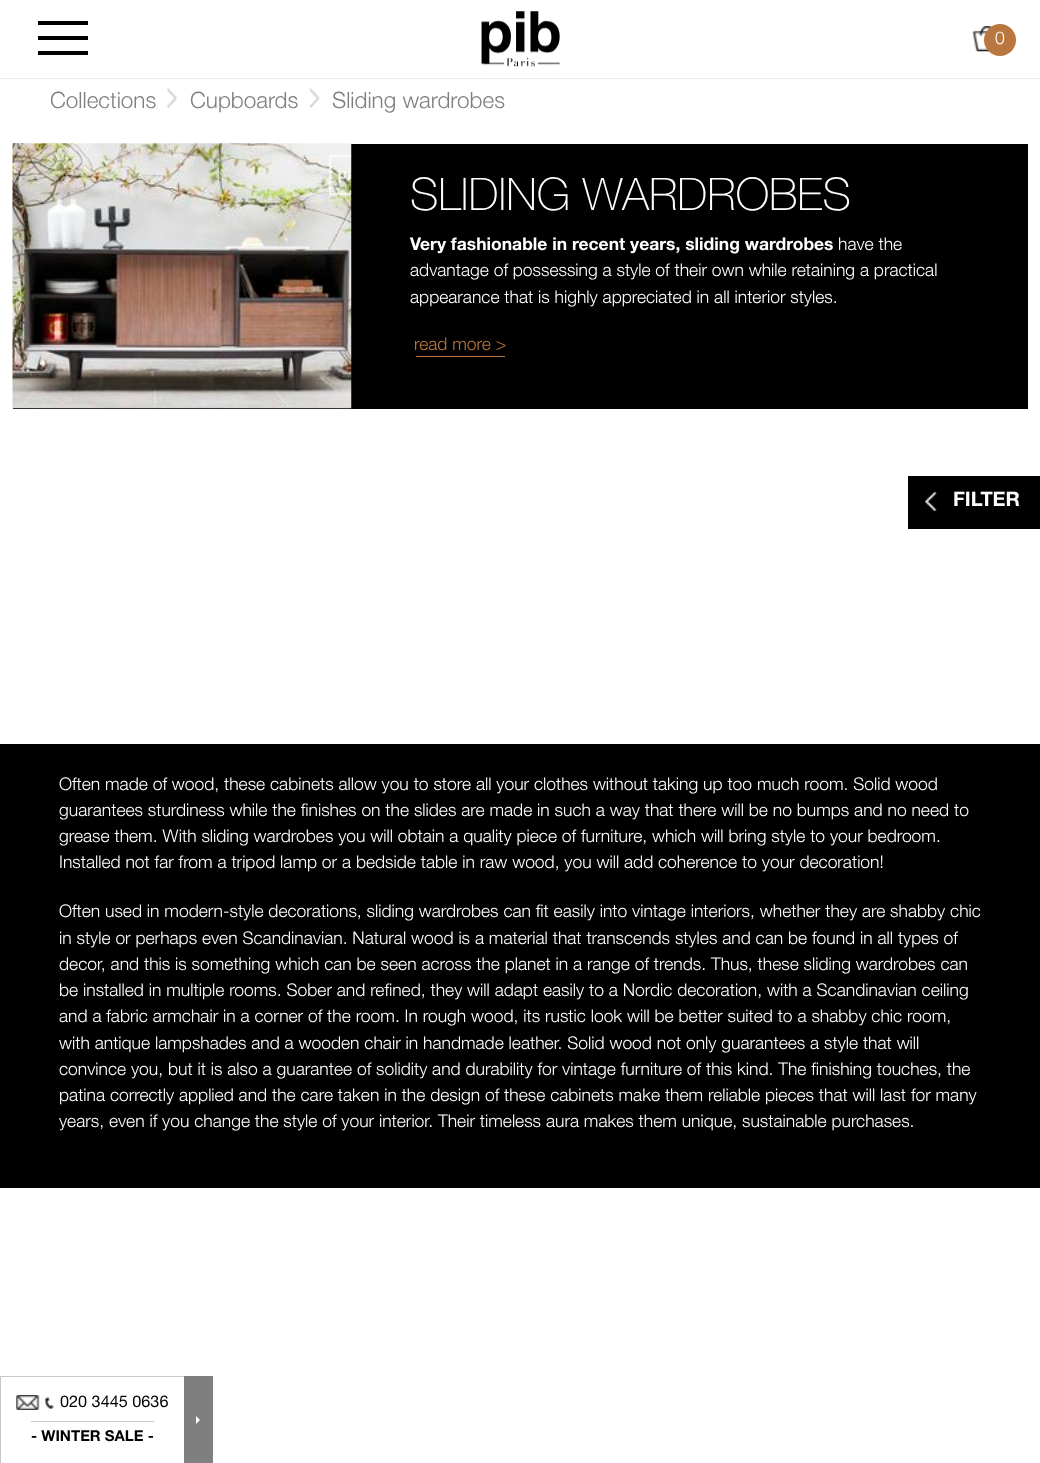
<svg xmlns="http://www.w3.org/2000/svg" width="1040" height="1463">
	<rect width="100%" height="100%" fill="#FFFFFF" />
	<rect x="0" y="78" width="1040" height="1" fill="#EEEEEE" />
	<rect x="38" y="21" width="50" height="4" fill="#000000" />
	<rect x="38" y="36" width="50" height="4" fill="#000000" />
	<rect x="38" y="51" width="50" height="4" fill="#000000" />
	<image x="481" y="11" width="79" height="56" href="assets/img1.png" />
	<image x="972" y="26" width="21" height="26" href="assets/img2.png" />
	<circle cx="1000" cy="40" r="16" fill="#B9763E" />
	<text x="995" y="44" font-family="Helvetica Neue" font-size="17.5" font-weight="300" fill="#FFFFFF">0</text>
	<text x="50" y="108" font-family="Helvetica Neue" font-size="22.5" font-weight="300" fill="#7F7F7F">Collections</text>
	<image x="167" y="88" width="10" height="20" href="assets/img3.png" />
	<text x="190" y="108" font-family="Helvetica Neue" font-size="22.5" font-weight="300" fill="#7F7F7F">Cupboards</text>
	<image x="309" y="88" width="11" height="20" href="assets/img4.png" />
	<text x="332" y="108" font-family="Helvetica Neue" font-size="22.5" font-weight="300" fill="#7F7F7F">Sliding wardrobes</text>
	<rect x="13" y="144" width="1015" height="265" fill="#000000" />
	<image x="12" y="143" width="340" height="266" href="assets/img5.png" />
	<text x="410" y="210" font-family="Helvetica Neue" font-size="45" font-weight="200" fill="#FFFFFF">SLIDING WARDROBES</text>
	<text x="410" y="250" font-family="Helvetica Neue" font-size="17.5" font-weight="700" fill="#FFFFFF">Very fashionable in recent years, sliding wardrobes</text>
	<g font-family="Helvetica Neue" font-size="17.5" font-weight="300" fill="#FFFFFF">
		<text x="838" y="250">have the</text>
		<text x="410" y="276">advantage of possessing a style of their own while retaining a practical</text>
		<text x="410" y="303">appearance that is highly appreciated in all interior styles.</text>
	</g>
	<text x="414" y="350" font-family="Helvetica Neue" font-size="17.5" font-weight="300" fill="#B9763E">read more &gt;</text>
	<rect x="416" y="356" width="89" height="1" fill="#B9763E" />
	<rect x="908" y="476" width="132" height="53" fill="#000000" />
	<image x="925" y="492" width="12" height="19" href="assets/img6.png" />
	<text x="953" y="506" font-family="Helvetica Neue" font-size="20" font-weight="700" fill="#FFFFFF">FILTER</text>
	<rect x="0" y="744" width="1040" height="444" fill="#000000" />
	<g font-family="Helvetica Neue" font-size="17.5" font-weight="300" fill="#FFFFFF">
		<text x="59" y="790">Often made of wood, these cabinets allow you to store all your clothes without taking up too much room. Solid wood</text>
		<text x="59" y="816">guarantees sturdiness while the finishes on the slides are made in such a way that there will be no bumps and no need to</text>
		<text x="59" y="842">grease them. With sliding wardrobes you will obtain a quality piece of furniture, which will bring style to your bedroom.</text>
		<text x="59" y="868">Installed not far from a tripod lamp or a bedside table in raw wood, you will add coherence to your decoration!</text>
		<text x="59" y="917">Often used in modern-style decorations, sliding wardrobes can fit easily into vintage interiors, whether they are shabby chic</text>
		<text x="59" y="944">in style or perhaps even Scandinavian. Natural wood is a material that transcends styles and can be found in all types of</text>
		<text x="59" y="970">decor, and this is something which can be seen across the planet in a range of trends. Thus, these sliding wardrobes can</text>
		<text x="59" y="996">be installed in multiple rooms. Sober and refined, they will adapt easily to a Nordic decoration, with a Scandinavian ceiling</text>
		<text x="59" y="1022">and a fabric armchair in a corner of the room. In rough wood, its rustic look will be better suited to a shabby chic room,</text>
		<text x="59" y="1049">with antique lampshades and a wooden chair in handmade leather. Solid wood not only guarantees a style that will</text>
		<text x="59" y="1075">convince you, but it is also a guarantee of solidity and durability for vintage furniture of this kind. The finishing touches, the</text>
		<text x="59" y="1101">patina correctly applied and the care taken in the design of these cabinets make them reliable pieces that will last for many</text>
		<text x="59" y="1127">years, even if you change the style of your interior. Their timeless aura makes them unique, sustainable purchases.</text>
	</g>
	<rect x="0.5" y="1376.5" width="212" height="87" fill="none" stroke="#C9C8C8" />
	<image x="16" y="1395" width="24" height="15" href="assets/img7.png" />
	<image x="45" y="1397" width="9" height="12" href="assets/img8.png" />
	<text x="60" y="1407" font-family="Helvetica Neue" font-size="16.25" fill="#000000">020 3445 0636</text>
	<rect x="31" y="1421" width="123" height="1" fill="#C9C8C8" />
	<text x="31" y="1441" font-family="Helvetica Neue" font-size="15" font-weight="700" fill="#000000">- WINTER SALE -</text>
	<rect x="184" y="1376" width="29" height="87" fill="#7F7F7F" />
	<path d="M196 1424V1416L200 1420Z" fill="#FFFFFF" />
</svg>
